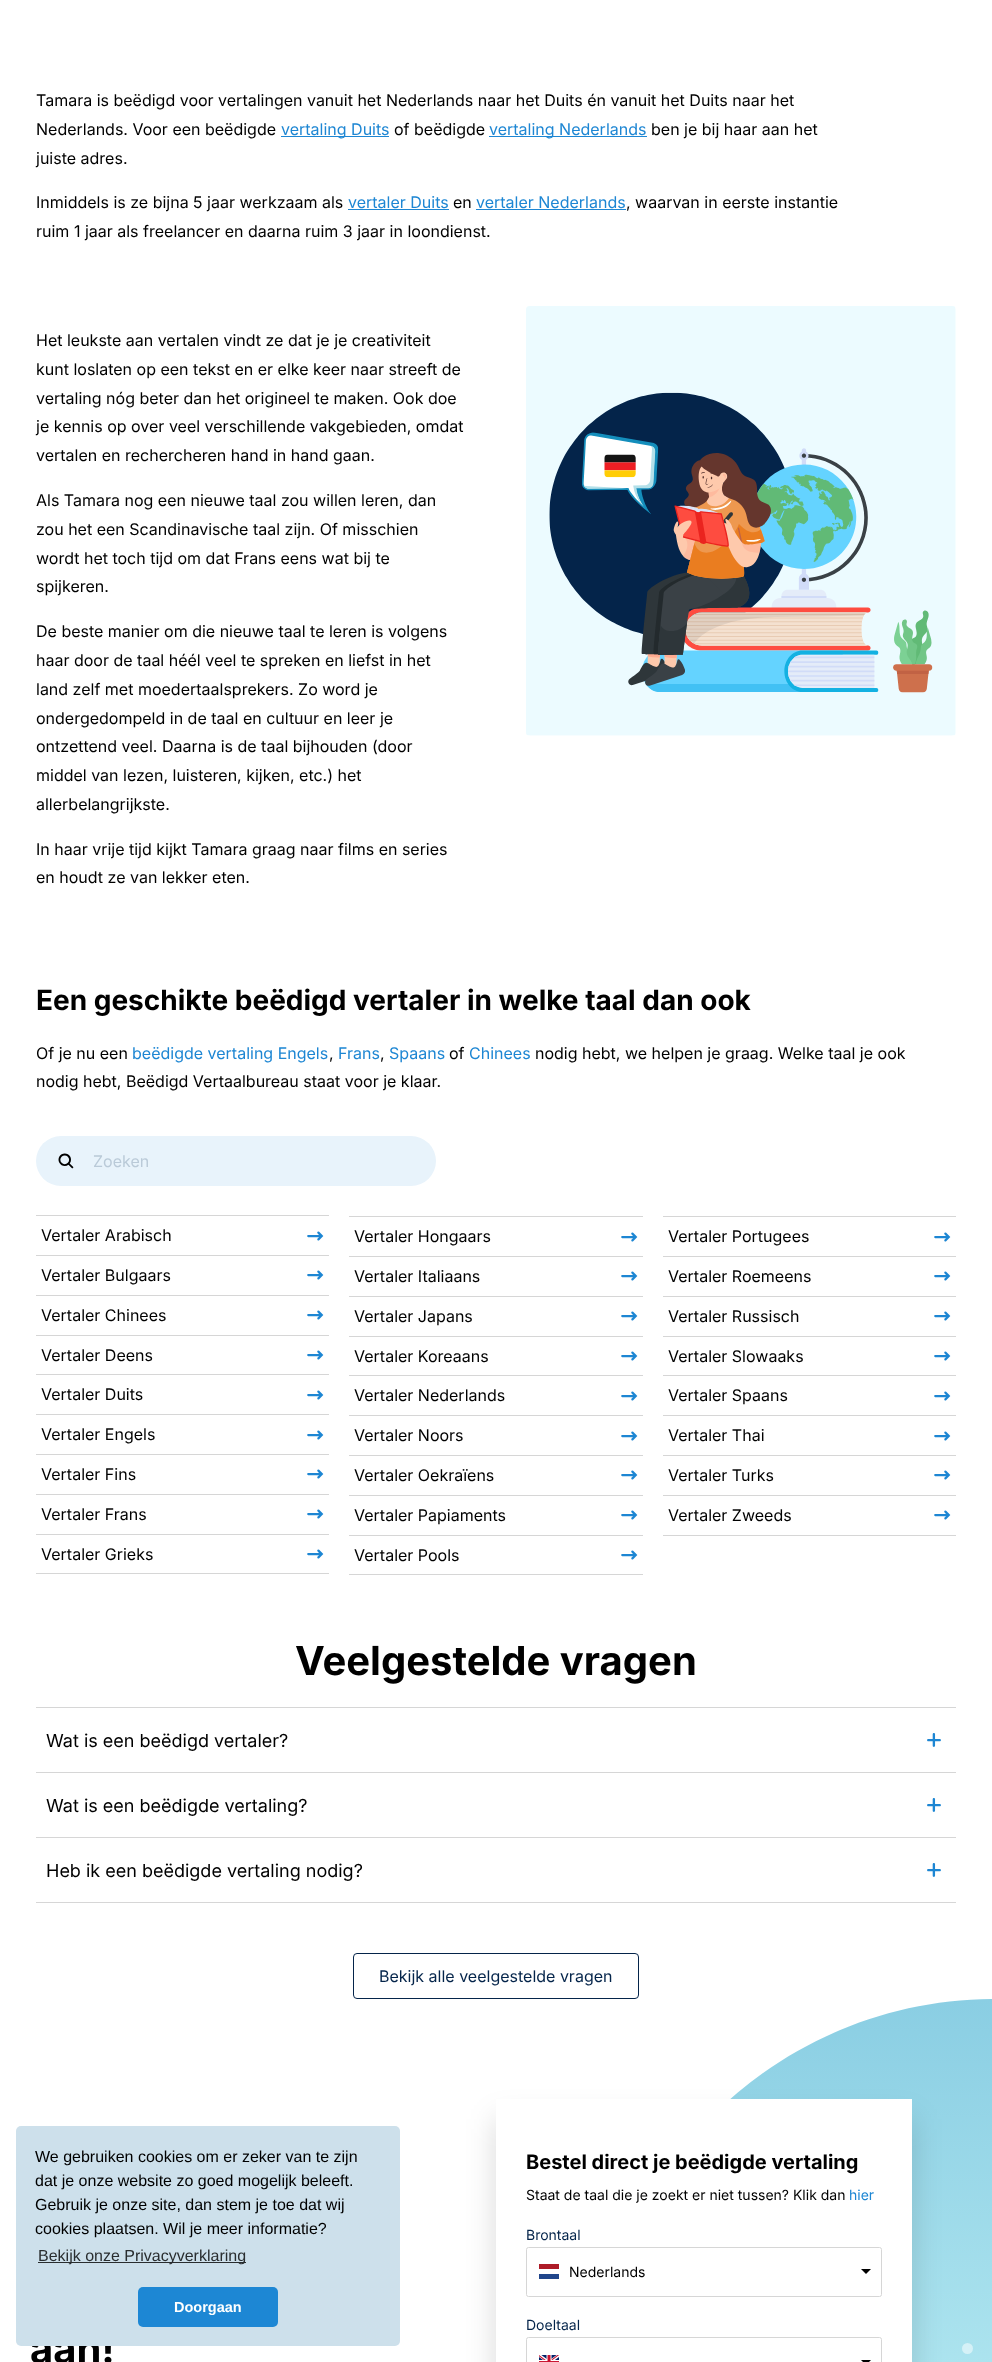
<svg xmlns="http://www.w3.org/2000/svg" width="992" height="2362">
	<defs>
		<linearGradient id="g1" gradientUnits="userSpaceOnUse" x1="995" y1="1999" x2="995" y2="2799"><stop offset="0" stop-color="#8ACEE3" /><stop offset="1" stop-color="#D4FDFC" /></linearGradient>
	</defs>
	<rect width="100%" height="100%" fill="#FFFFFF" />
	<g font-family="Inter" font-size="16" fill="#000000">
		<text x="36" y="106">Tamara is beëdigd voor vertalingen vanuit het Nederlands naar het Duits én vanuit het Duits naar het</text>
		<text x="36" y="135">Nederlands. Voor een beëdigde</text>
	</g>
	<rect x="281" y="136" width="108" height="1" fill="#1D86D3" />
	<text x="281" y="135" font-family="Inter" font-size="16" fill="#1D86D3">vertaling Duits</text>
	<text x="394" y="135" font-family="Inter" font-size="16" fill="#000000">of beëdigde</text>
	<rect x="489" y="136" width="158" height="1" fill="#1D86D3" />
	<text x="489" y="135" font-family="Inter" font-size="16" fill="#1D86D3">vertaling Nederlands</text>
	<g font-family="Inter" font-size="16" fill="#000000">
		<text x="651" y="135">ben je bij haar aan het</text>
		<text x="36" y="164">juiste adres.</text>
		<text x="36" y="208">Inmiddels is ze bijna 5 jaar werkzaam als</text>
	</g>
	<text x="348" y="208" font-family="Inter" font-size="16" fill="#1D86D3">vertaler Duits</text>
	<rect x="348" y="209" width="101" height="1" fill="#1D86D3" />
	<text x="453" y="208" font-family="Inter" font-size="16" fill="#000000">en</text>
	<text x="476" y="208" font-family="Inter" font-size="16" fill="#1D86D3">vertaler Nederlands</text>
	<rect x="476" y="209" width="150" height="1" fill="#1D86D3" />
	<g font-family="Inter" font-size="16" fill="#000000">
		<text x="626" y="208">, waarvan in eerste instantie</text>
		<text x="36" y="237">ruim 1 jaar als freelancer en daarna ruim 3 jaar in loondienst.</text>
		<text x="36" y="346">Het leukste aan vertalen vindt ze dat je je creativiteit</text>
		<text x="36" y="375">kunt loslaten op een tekst en er elke keer naar streeft de</text>
		<text x="36" y="404">vertaling nóg beter dan het origineel te maken. Ook doe</text>
		<text x="36" y="432">je kennis op over veel verschillende vakgebieden, omdat</text>
		<text x="36" y="461">vertalen en rechercheren hand in hand gaan.</text>
		<text x="36" y="506">Als Tamara nog een nieuwe taal zou willen leren, dan</text>
		<text x="36" y="535">zou het een Scandinavische taal zijn. Of misschien</text>
		<text x="36" y="564">wordt het toch tijd om dat Frans eens wat bij te</text>
		<text x="36" y="592">spijkeren.</text>
		<text x="36" y="637">De beste manier om die nieuwe taal te leren is volgens</text>
		<text x="36" y="666">haar door de taal héél veel te spreken en liefst in het</text>
		<text x="36" y="695">land zelf met moedertaalsprekers. Zo word je</text>
		<text x="36" y="724">ondergedompeld in de taal en cultuur en leer je</text>
		<text x="36" y="752">ontzettend veel. Daarna is de taal bijhouden (door</text>
		<text x="36" y="781">middel van lezen, luisteren, kijken, etc.) het</text>
		<text x="36" y="810">allerbelangrijkste.</text>
		<text x="36" y="855">In haar vrije tijd kijkt Tamara graag naar films en series</text>
		<text x="36" y="883">en houdt ze van lekker eten.</text>
	</g>
	<image x="526" y="306" width="430" height="430" href="assets/img1.png" />
	<text x="36" y="1010" font-family="Inter" font-size="28" font-weight="700" fill="#000000">Een geschikte beëdigd vertaler in welke taal dan ook</text>
	<text x="36" y="1059" font-family="Inter" font-size="16" fill="#000000">Of je nu een</text>
	<text x="132" y="1059" font-family="Inter" font-size="16" fill="#1D86D3">beëdigde vertaling Engels</text>
	<text x="329" y="1059" font-family="Inter" font-size="16" fill="#000000">,</text>
	<text x="338" y="1059" font-family="Inter" font-size="16" fill="#1D86D3">Frans</text>
	<text x="380" y="1059" font-family="Inter" font-size="16" fill="#000000">,</text>
	<text x="389" y="1059" font-family="Inter" font-size="16" fill="#1D86D3">Spaans</text>
	<text x="449" y="1059" font-family="Inter" font-size="16" fill="#000000">of</text>
	<text x="469" y="1059" font-family="Inter" font-size="16" fill="#1D86D3">Chinees</text>
	<g font-family="Inter" font-size="16" fill="#000000">
		<text x="535" y="1059">nodig hebt, we helpen je graag. Welke taal je ook</text>
		<text x="36" y="1087">nodig hebt, Beëdigd Vertaalbureau staat voor je klaar.</text>
	</g>
	<rect x="36" y="1136" width="400" height="50" rx="25" fill="#E8F3FB" />
	<image x="58" y="1153" width="16" height="16" href="assets/img2.png" />
	<text x="93" y="1167" font-family="Inter" font-size="16" fill="#BACAD8">Zoeken</text>
	<rect x="36" y="1215" width="293" height="1" fill="#D6D6D6" />
	<rect x="36" y="1255" width="293" height="1" fill="#D6D6D6" />
	<text x="41" y="1241" font-family="Inter" font-size="16" fill="#000000">Vertaler Arabisch</text>
	<image x="307" y="1231" width="17" height="10" href="assets/img3.png" />
	<rect x="349" y="1216" width="294" height="1" fill="#D6D6D6" />
	<rect x="349" y="1256" width="294" height="1" fill="#D6D6D6" />
	<text x="354" y="1242" font-family="Inter" font-size="16" fill="#000000">Vertaler Hongaars</text>
	<image x="621" y="1232" width="17" height="10" href="assets/img3.png" />
	<rect x="663" y="1216" width="293" height="1" fill="#D6D6D6" />
	<rect x="663" y="1256" width="293" height="1" fill="#D6D6D6" />
	<text x="668" y="1242" font-family="Inter" font-size="16" fill="#000000">Vertaler Portugees</text>
	<image x="934" y="1232" width="17" height="10" href="assets/img3.png" />
	<rect x="36" y="1295" width="293" height="1" fill="#D6D6D6" />
	<text x="41" y="1281" font-family="Inter" font-size="16" fill="#000000">Vertaler Bulgaars</text>
	<image x="307" y="1270" width="17" height="10" href="assets/img3.png" />
	<rect x="349" y="1296" width="294" height="1" fill="#D6D6D6" />
	<text x="354" y="1282" font-family="Inter" font-size="16" fill="#000000">Vertaler Italiaans</text>
	<image x="621" y="1271" width="17" height="10" href="assets/img3.png" />
	<rect x="663" y="1296" width="293" height="1" fill="#D6D6D6" />
	<text x="668" y="1282" font-family="Inter" font-size="16" fill="#000000">Vertaler Roemeens</text>
	<image x="934" y="1271" width="17" height="10" href="assets/img3.png" />
	<rect x="36" y="1335" width="293" height="1" fill="#D6D6D6" />
	<text x="41" y="1321" font-family="Inter" font-size="16" fill="#000000">Vertaler Chinees</text>
	<image x="307" y="1310" width="17" height="10" href="assets/img3.png" />
	<rect x="349" y="1336" width="294" height="1" fill="#D6D6D6" />
	<text x="354" y="1322" font-family="Inter" font-size="16" fill="#000000">Vertaler Japans</text>
	<image x="621" y="1311" width="17" height="10" href="assets/img3.png" />
	<rect x="663" y="1336" width="293" height="1" fill="#D6D6D6" />
	<text x="668" y="1322" font-family="Inter" font-size="16" fill="#000000">Vertaler Russisch</text>
	<image x="934" y="1311" width="17" height="10" href="assets/img3.png" />
	<rect x="36" y="1374" width="293" height="1" fill="#D6D6D6" />
	<text x="41" y="1361" font-family="Inter" font-size="16" fill="#000000">Vertaler Deens</text>
	<image x="307" y="1350" width="17" height="10" href="assets/img3.png" />
	<rect x="349" y="1375" width="294" height="1" fill="#D6D6D6" />
	<text x="354" y="1362" font-family="Inter" font-size="16" fill="#000000">Vertaler Koreaans</text>
	<image x="621" y="1351" width="17" height="10" href="assets/img3.png" />
	<rect x="663" y="1375" width="293" height="1" fill="#D6D6D6" />
	<text x="668" y="1362" font-family="Inter" font-size="16" fill="#000000">Vertaler Slowaaks</text>
	<image x="934" y="1351" width="17" height="10" href="assets/img3.png" />
	<rect x="36" y="1414" width="293" height="1" fill="#D6D6D6" />
	<text x="41" y="1400" font-family="Inter" font-size="16" fill="#000000">Vertaler Duits</text>
	<image x="307" y="1390" width="17" height="10" href="assets/img3.png" />
	<rect x="349" y="1415" width="294" height="1" fill="#D6D6D6" />
	<text x="354" y="1401" font-family="Inter" font-size="16" fill="#000000">Vertaler Nederlands</text>
	<image x="621" y="1391" width="17" height="10" href="assets/img3.png" />
	<rect x="663" y="1415" width="293" height="1" fill="#D6D6D6" />
	<text x="668" y="1401" font-family="Inter" font-size="16" fill="#000000">Vertaler Spaans</text>
	<image x="934" y="1391" width="17" height="10" href="assets/img3.png" />
	<rect x="36" y="1454" width="293" height="1" fill="#D6D6D6" />
	<text x="41" y="1440" font-family="Inter" font-size="16" fill="#000000">Vertaler Engels</text>
	<image x="307" y="1430" width="17" height="10" href="assets/img3.png" />
	<rect x="349" y="1455" width="294" height="1" fill="#D6D6D6" />
	<text x="354" y="1441" font-family="Inter" font-size="16" fill="#000000">Vertaler Noors</text>
	<image x="621" y="1431" width="17" height="10" href="assets/img3.png" />
	<rect x="663" y="1455" width="293" height="1" fill="#D6D6D6" />
	<text x="668" y="1441" font-family="Inter" font-size="16" fill="#000000">Vertaler Thai</text>
	<image x="934" y="1431" width="17" height="10" href="assets/img3.png" />
	<rect x="36" y="1494" width="293" height="1" fill="#D6D6D6" />
	<text x="41" y="1480" font-family="Inter" font-size="16" fill="#000000">Vertaler Fins</text>
	<image x="307" y="1469" width="17" height="10" href="assets/img3.png" />
	<rect x="349" y="1495" width="294" height="1" fill="#D6D6D6" />
	<text x="354" y="1481" font-family="Inter" font-size="16" fill="#000000">Vertaler Oekraïens</text>
	<image x="621" y="1470" width="17" height="10" href="assets/img3.png" />
	<rect x="663" y="1495" width="293" height="1" fill="#D6D6D6" />
	<text x="668" y="1481" font-family="Inter" font-size="16" fill="#000000">Vertaler Turks</text>
	<image x="934" y="1470" width="17" height="10" href="assets/img3.png" />
	<rect x="36" y="1534" width="293" height="1" fill="#D6D6D6" />
	<text x="41" y="1520" font-family="Inter" font-size="16" fill="#000000">Vertaler Frans</text>
	<image x="307" y="1509" width="17" height="10" href="assets/img3.png" />
	<rect x="349" y="1535" width="294" height="1" fill="#D6D6D6" />
	<text x="354" y="1521" font-family="Inter" font-size="16" fill="#000000">Vertaler Papiaments</text>
	<image x="621" y="1510" width="17" height="10" href="assets/img3.png" />
	<rect x="663" y="1535" width="293" height="1" fill="#D6D6D6" />
	<text x="668" y="1521" font-family="Inter" font-size="16" fill="#000000">Vertaler Zweeds</text>
	<image x="934" y="1510" width="17" height="10" href="assets/img3.png" />
	<rect x="36" y="1573" width="293" height="1" fill="#D6D6D6" />
	<text x="41" y="1560" font-family="Inter" font-size="16" fill="#000000">Vertaler Grieks</text>
	<image x="307" y="1549" width="17" height="10" href="assets/img3.png" />
	<rect x="349" y="1574" width="294" height="1" fill="#D6D6D6" />
	<text x="354" y="1561" font-family="Inter" font-size="16" fill="#000000">Vertaler Pools</text>
	<image x="621" y="1550" width="17" height="10" href="assets/img3.png" />
	<text x="295" y="1675" font-family="Inter" font-size="40" font-weight="700" fill="#000000">Veelgestelde vragen</text>
	<rect x="36" y="1707" width="920" height="1" fill="#D6D6D6" />
	<text x="46" y="1747" font-family="Inter" font-size="18" fill="#000000">Wat is een beëdigd vertaler?</text>
	<image x="927" y="1733" width="14" height="14" href="assets/img4.png" />
	<rect x="36" y="1772" width="920" height="1" fill="#D6D6D6" />
	<text x="46" y="1812" font-family="Inter" font-size="18" fill="#000000">Wat is een beëdigde vertaling?</text>
	<image x="927" y="1798" width="14" height="14" href="assets/img4.png" />
	<rect x="36" y="1837" width="920" height="1" fill="#D6D6D6" />
	<rect x="36" y="1902" width="920" height="1" fill="#D6D6D6" />
	<text x="46" y="1877" font-family="Inter" font-size="18" fill="#000000">Heb ik een beëdigde vertaling nodig?</text>
	<image x="927" y="1863" width="14" height="14" href="assets/img4.png" />
	<rect x="353.5" y="1953.5" width="285" height="45" rx="3.5" fill="none" stroke="#04244A" />
	<text x="379" y="1982" font-family="Inter" font-size="16" fill="#04244A">Bekijk alle veelgestelde vragen</text>
	<path d="M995 1999H992V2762H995C774 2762 595 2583 595 2362V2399C595 2178 774 1999 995 1999Z" fill="url(#g1)" />
	<rect x="496" y="2119" width="416" height="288" fill="#000000" fill-opacity="0.15" filter="blur(15px)" />
	<rect x="496" y="2099" width="416" height="263" fill="#FFFFFF" />
	<text x="526" y="2169" font-family="Inter" font-size="20" font-weight="700" fill="#000000">Bestel direct je beëdigde vertaling</text>
	<text x="526" y="2200" font-family="Inter" font-size="14" fill="#000000">Staat de taal die je zoekt er niet tussen? Klik dan</text>
	<text x="849" y="2200" font-family="Inter" font-size="14" fill="#1D86D3">hier</text>
	<text x="526" y="2240" font-family="Inter" font-size="14" fill="#04244A">Brontaal</text>
	<rect x="526.5" y="2247.5" width="355" height="49" rx="2" fill="none" stroke="#D6D6D6" />
	<rect x="539" y="2274" width="20" height="5" fill="#21468B" />
	<rect x="539" y="2264" width="20" height="5" fill="#AE1C28" />
	<text x="569" y="2277" font-family="Inter" font-size="14" fill="#000000">Nederlands</text>
	<path d="M861 2269H871L866 2274Z" fill="#000000" />
	<text x="526" y="2330" font-family="Inter" font-size="14" fill="#04244A">Doeltaal</text>
	<rect x="526.5" y="2337.5" width="355" height="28" rx="2" fill="none" stroke="#D6D6D6" />
	<image x="539" y="2355" width="20" height="7" href="assets/img5.png" />
	<path d="M861 2360H871L866 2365Z" fill="#000000" />
	<image x="962" y="2343" width="11" height="11" href="assets/img6.png" />
	<text x="30" y="2363" font-family="Inter" font-size="40" font-weight="700" fill="#000000">aan!</text>
	<rect x="16" y="2126" width="384" height="220" rx="5" fill="#CDE0EB" />
	<g font-family="Liberation Sans" font-size="16" fill="#000000">
		<text x="35" y="2162">We gebruiken cookies om er zeker van te zijn</text>
		<text x="35" y="2186">dat je onze website zo goed mogelijk beleeft.</text>
		<text x="35" y="2210">Gebruik je onze site, dan stem je toe dat wij</text>
		<text x="35" y="2234">cookies plaatsen. Wil je meer informatie?</text>
	</g>
	<rect x="38" y="2262" width="208" height="1" fill="#292D2F" />
	<text x="38" y="2261" font-family="Liberation Sans" font-size="16" fill="#292D2F">Bekijk onze Privacyverklaring</text>
	<rect x="138" y="2287" width="140" height="40" rx="5" fill="#1D87D4" />
	<text x="174" y="2312" font-family="Liberation Sans" font-size="14.5" font-weight="700" fill="#FFFFFF">Doorgaan</text>
</svg>
